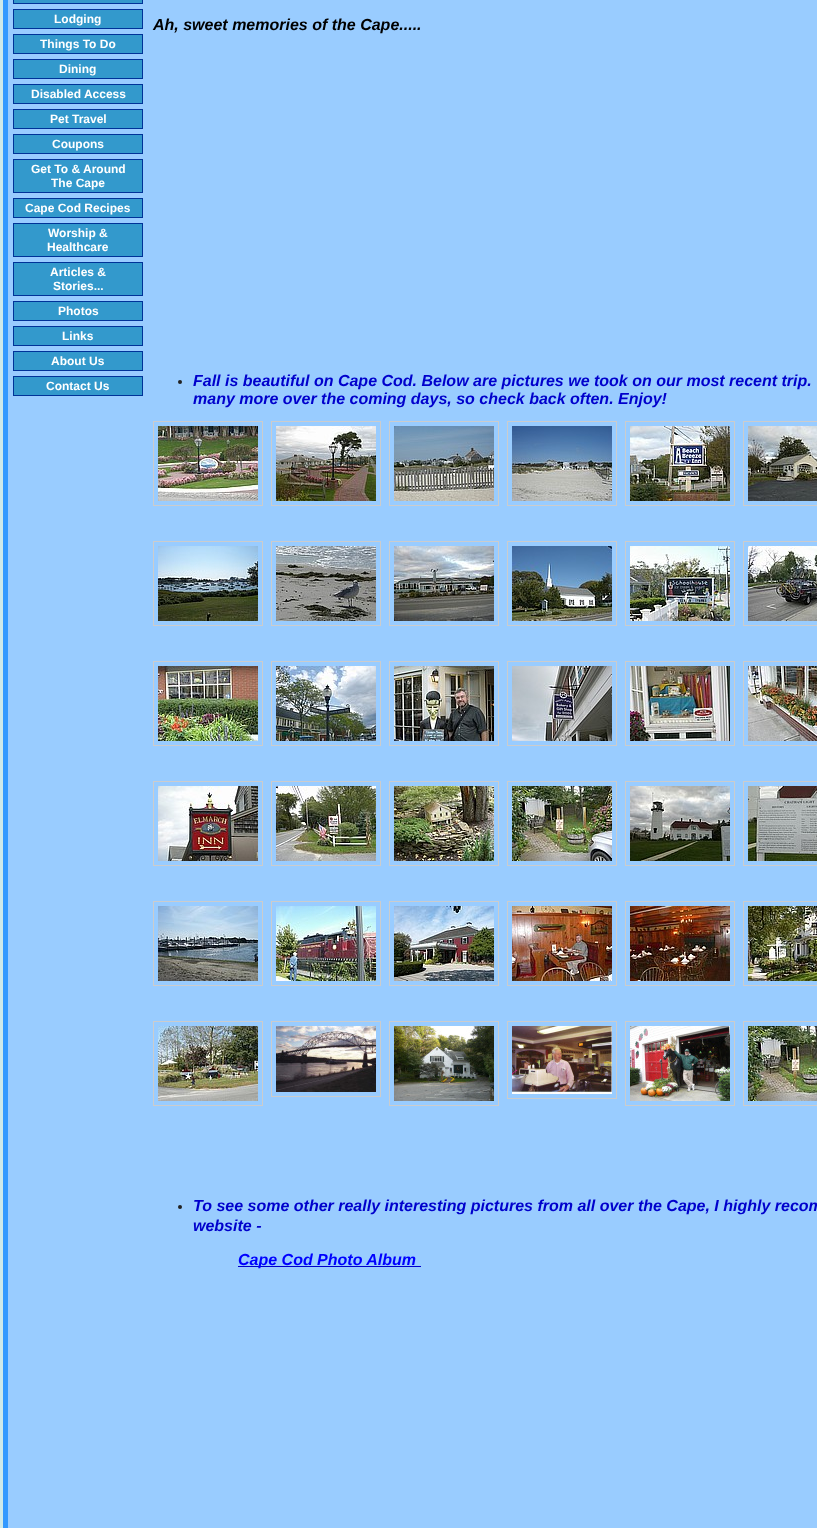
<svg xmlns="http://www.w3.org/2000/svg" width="817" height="1528">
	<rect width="100%" height="100%" fill="#CEE9EA" />
	<rect x="3" y="0" width="5" height="1528" fill="#3399FF" />
	<rect x="8" y="0" width="809" height="1528" fill="#99CCFF" />
	<rect x="13" y="0" width="130" height="4" fill="#003399" />
	<rect x="14" y="0" width="128" height="3" fill="#3399CC" />
	<rect x="13" y="9" width="130" height="20" fill="#003399" />
	<rect x="14" y="10" width="128" height="18" fill="#3399CC" />
	<text x="54" y="23" font-family="Liberation Sans" font-size="12" font-weight="700" fill="#FFFFFF">Lodging</text>
	<rect x="13" y="34" width="130" height="20" fill="#003399" />
	<rect x="14" y="35" width="128" height="18" fill="#3399CC" />
	<text x="40" y="48" font-family="Liberation Sans" font-size="12" font-weight="700" fill="#FFFFFF">Things To Do</text>
	<rect x="13" y="59" width="130" height="20" fill="#003399" />
	<rect x="14" y="60" width="128" height="18" fill="#3399CC" />
	<text x="59" y="73" font-family="Liberation Sans" font-size="12" font-weight="700" fill="#FFFFFF">Dining</text>
	<rect x="13" y="84" width="130" height="20" fill="#003399" />
	<rect x="14" y="85" width="128" height="18" fill="#3399CC" />
	<text x="31" y="98" font-family="Liberation Sans" font-size="12" font-weight="700" fill="#FFFFFF">Disabled Access</text>
	<rect x="13" y="109" width="130" height="20" fill="#003399" />
	<rect x="14" y="110" width="128" height="18" fill="#3399CC" />
	<text x="50" y="123" font-family="Liberation Sans" font-size="12" font-weight="700" fill="#FFFFFF">Pet Travel</text>
	<rect x="13" y="134" width="130" height="20" fill="#003399" />
	<rect x="14" y="135" width="128" height="18" fill="#3399CC" />
	<text x="52" y="148" font-family="Liberation Sans" font-size="12" font-weight="700" fill="#FFFFFF">Coupons</text>
	<rect x="13" y="159" width="130" height="34" fill="#003399" />
	<rect x="14" y="160" width="128" height="32" fill="#3399CC" />
	<g font-family="Liberation Sans" font-size="12" font-weight="700" fill="#FFFFFF">
		<text x="31" y="173">Get To &amp; Around</text>
		<text x="51" y="187">The Cape</text>
	</g>
	<rect x="13" y="198" width="130" height="20" fill="#003399" />
	<rect x="14" y="199" width="128" height="18" fill="#3399CC" />
	<text x="25" y="212" font-family="Liberation Sans" font-size="12" font-weight="700" fill="#FFFFFF">Cape Cod Recipes</text>
	<rect x="13" y="223" width="130" height="34" fill="#003399" />
	<rect x="14" y="224" width="128" height="32" fill="#3399CC" />
	<g font-family="Liberation Sans" font-size="12" font-weight="700" fill="#FFFFFF">
		<text x="48" y="237">Worship &amp;</text>
		<text x="47" y="251">Healthcare</text>
	</g>
	<rect x="13" y="262" width="130" height="34" fill="#003399" />
	<rect x="14" y="263" width="128" height="32" fill="#3399CC" />
	<g font-family="Liberation Sans" font-size="12" font-weight="700" fill="#FFFFFF">
		<text x="50" y="276">Articles &amp;</text>
		<text x="53" y="290">Stories...</text>
	</g>
	<rect x="13" y="301" width="130" height="20" fill="#003399" />
	<rect x="14" y="302" width="128" height="18" fill="#3399CC" />
	<text x="58" y="315" font-family="Liberation Sans" font-size="12" font-weight="700" fill="#FFFFFF">Photos</text>
	<rect x="13" y="326" width="130" height="20" fill="#003399" />
	<rect x="14" y="327" width="128" height="18" fill="#3399CC" />
	<text x="62" y="340" font-family="Liberation Sans" font-size="12" font-weight="700" fill="#FFFFFF">Links</text>
	<rect x="13" y="351" width="130" height="20" fill="#003399" />
	<rect x="14" y="352" width="128" height="18" fill="#3399CC" />
	<text x="51" y="365" font-family="Liberation Sans" font-size="12" font-weight="700" fill="#FFFFFF">About Us</text>
	<rect x="13" y="376" width="130" height="20" fill="#003399" />
	<rect x="14" y="377" width="128" height="18" fill="#3399CC" />
	<text x="46" y="390" font-family="Liberation Sans" font-size="12" font-weight="700" fill="#FFFFFF">Contact Us</text>
	<text x="153" y="30" font-family="Liberation Sans" font-size="16" font-weight="700" font-style="italic" fill="#000000">Ah, sweet memories of the Cape.....</text>
	<circle cx="180" cy="382" r="2" fill="#222222" />
	<g font-family="Liberation Sans" font-size="16" font-weight="700" font-style="italic" fill="#0000CC">
		<text x="193" y="386">Fall is beautiful on Cape Cod. Below are pictures we took on our most recent trip.</text>
		<text x="193" y="404">many more over the coming days, so check back often. Enjoy!</text>
	</g>
	<rect x="153.5" y="421.5" width="109" height="84" fill="none" stroke="#CCCCCC" />
	<image x="158" y="426" width="100" height="75" href="assets/img1.png" />
	<rect x="271.5" y="421.5" width="109" height="84" fill="none" stroke="#CCCCCC" />
	<image x="276" y="426" width="100" height="75" href="assets/img2.png" />
	<rect x="389.5" y="421.5" width="109" height="84" fill="none" stroke="#CCCCCC" />
	<image x="394" y="426" width="100" height="75" href="assets/img3.png" />
	<rect x="507.5" y="421.5" width="109" height="84" fill="none" stroke="#CCCCCC" />
	<image x="512" y="426" width="100" height="75" href="assets/img4.png" />
	<rect x="625.5" y="421.5" width="109" height="84" fill="none" stroke="#CCCCCC" />
	<image x="630" y="426" width="100" height="75" href="assets/img5.png" />
	<rect x="743.5" y="421.5" width="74" height="84" fill="none" stroke="#CCCCCC" />
	<image x="748" y="426" width="69" height="75" href="assets/img6.png" />
	<rect x="153.5" y="541.5" width="109" height="84" fill="none" stroke="#CCCCCC" />
	<image x="158" y="546" width="100" height="75" href="assets/img7.png" />
	<rect x="271.5" y="541.5" width="109" height="84" fill="none" stroke="#CCCCCC" />
	<image x="276" y="546" width="100" height="75" href="assets/img8.png" />
	<rect x="389.5" y="541.5" width="109" height="84" fill="none" stroke="#CCCCCC" />
	<image x="394" y="546" width="100" height="75" href="assets/img9.png" />
	<rect x="507.5" y="541.5" width="109" height="84" fill="none" stroke="#CCCCCC" />
	<image x="512" y="546" width="100" height="75" href="assets/img10.png" />
	<rect x="625.5" y="541.5" width="109" height="84" fill="none" stroke="#CCCCCC" />
	<image x="630" y="546" width="100" height="75" href="assets/img11.png" />
	<rect x="743.5" y="541.5" width="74" height="84" fill="none" stroke="#CCCCCC" />
	<image x="748" y="546" width="69" height="75" href="assets/img12.png" />
	<rect x="153.5" y="661.5" width="109" height="84" fill="none" stroke="#CCCCCC" />
	<image x="158" y="666" width="100" height="75" href="assets/img13.png" />
	<rect x="271.5" y="661.5" width="109" height="84" fill="none" stroke="#CCCCCC" />
	<image x="276" y="666" width="100" height="75" href="assets/img14.png" />
	<rect x="389.5" y="661.5" width="109" height="84" fill="none" stroke="#CCCCCC" />
	<image x="394" y="666" width="100" height="75" href="assets/img15.png" />
	<rect x="507.5" y="661.5" width="109" height="84" fill="none" stroke="#CCCCCC" />
	<image x="512" y="666" width="100" height="75" href="assets/img16.png" />
	<rect x="625.5" y="661.5" width="109" height="84" fill="none" stroke="#CCCCCC" />
	<image x="630" y="666" width="100" height="75" href="assets/img17.png" />
	<rect x="743.5" y="661.5" width="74" height="84" fill="none" stroke="#CCCCCC" />
	<image x="748" y="666" width="69" height="75" href="assets/img18.png" />
	<rect x="153.5" y="781.5" width="109" height="84" fill="none" stroke="#CCCCCC" />
	<image x="158" y="786" width="100" height="75" href="assets/img19.png" />
	<rect x="271.5" y="781.5" width="109" height="84" fill="none" stroke="#CCCCCC" />
	<image x="276" y="786" width="100" height="75" href="assets/img20.png" />
	<rect x="389.5" y="781.5" width="109" height="84" fill="none" stroke="#CCCCCC" />
	<image x="394" y="786" width="100" height="75" href="assets/img21.png" />
	<rect x="507.5" y="781.5" width="109" height="84" fill="none" stroke="#CCCCCC" />
	<image x="512" y="786" width="100" height="75" href="assets/img22.png" />
	<rect x="625.5" y="781.5" width="109" height="84" fill="none" stroke="#CCCCCC" />
	<image x="630" y="786" width="100" height="75" href="assets/img23.png" />
	<rect x="743.5" y="781.5" width="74" height="84" fill="none" stroke="#CCCCCC" />
	<image x="748" y="786" width="69" height="75" href="assets/img24.png" />
	<rect x="153.5" y="901.5" width="109" height="84" fill="none" stroke="#CCCCCC" />
	<image x="158" y="906" width="100" height="75" href="assets/img25.png" />
	<rect x="271.5" y="901.5" width="109" height="84" fill="none" stroke="#CCCCCC" />
	<image x="276" y="906" width="100" height="75" href="assets/img26.png" />
	<rect x="389.5" y="901.5" width="109" height="84" fill="none" stroke="#CCCCCC" />
	<image x="394" y="906" width="100" height="75" href="assets/img27.png" />
	<rect x="507.5" y="901.5" width="109" height="84" fill="none" stroke="#CCCCCC" />
	<image x="512" y="906" width="100" height="75" href="assets/img28.png" />
	<rect x="625.5" y="901.5" width="109" height="84" fill="none" stroke="#CCCCCC" />
	<image x="630" y="906" width="100" height="75" href="assets/img29.png" />
	<rect x="743.5" y="901.5" width="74" height="84" fill="none" stroke="#CCCCCC" />
	<image x="748" y="906" width="69" height="75" href="assets/img30.png" />
	<rect x="153.5" y="1021.5" width="109" height="84" fill="none" stroke="#CCCCCC" />
	<image x="158" y="1026" width="100" height="75" href="assets/img31.png" />
	<rect x="271.5" y="1021.5" width="109" height="75" fill="none" stroke="#CCCCCC" />
	<image x="276" y="1026" width="100" height="66" href="assets/img32.png" />
	<rect x="389.5" y="1021.5" width="109" height="84" fill="none" stroke="#CCCCCC" />
	<image x="394" y="1026" width="100" height="75" href="assets/img33.png" />
	<rect x="507.5" y="1021.5" width="109" height="77" fill="none" stroke="#CCCCCC" />
	<image x="512" y="1026" width="100" height="68" href="assets/img34.png" />
	<rect x="625.5" y="1021.5" width="109" height="84" fill="none" stroke="#CCCCCC" />
	<image x="630" y="1026" width="100" height="75" href="assets/img35.png" />
	<rect x="743.5" y="1021.5" width="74" height="84" fill="none" stroke="#CCCCCC" />
	<image x="748" y="1026" width="69" height="75" href="assets/img36.png" />
	<circle cx="180" cy="1207" r="2" fill="#222222" />
	<g font-family="Liberation Sans" font-size="16" font-weight="700" font-style="italic" fill="#0000CC">
		<text x="193" y="1211">To see some other really interesting pictures from all over the Cape, I highly recom</text>
		<text x="193" y="1231">website -</text>
	</g>
	<rect x="238" y="1266" width="183" height="1" fill="#0000CC" />
	<text x="238" y="1265" font-family="Liberation Sans" font-size="16" font-weight="700" font-style="italic" fill="#0000FF">Cape Cod Photo Album</text>
</svg>
